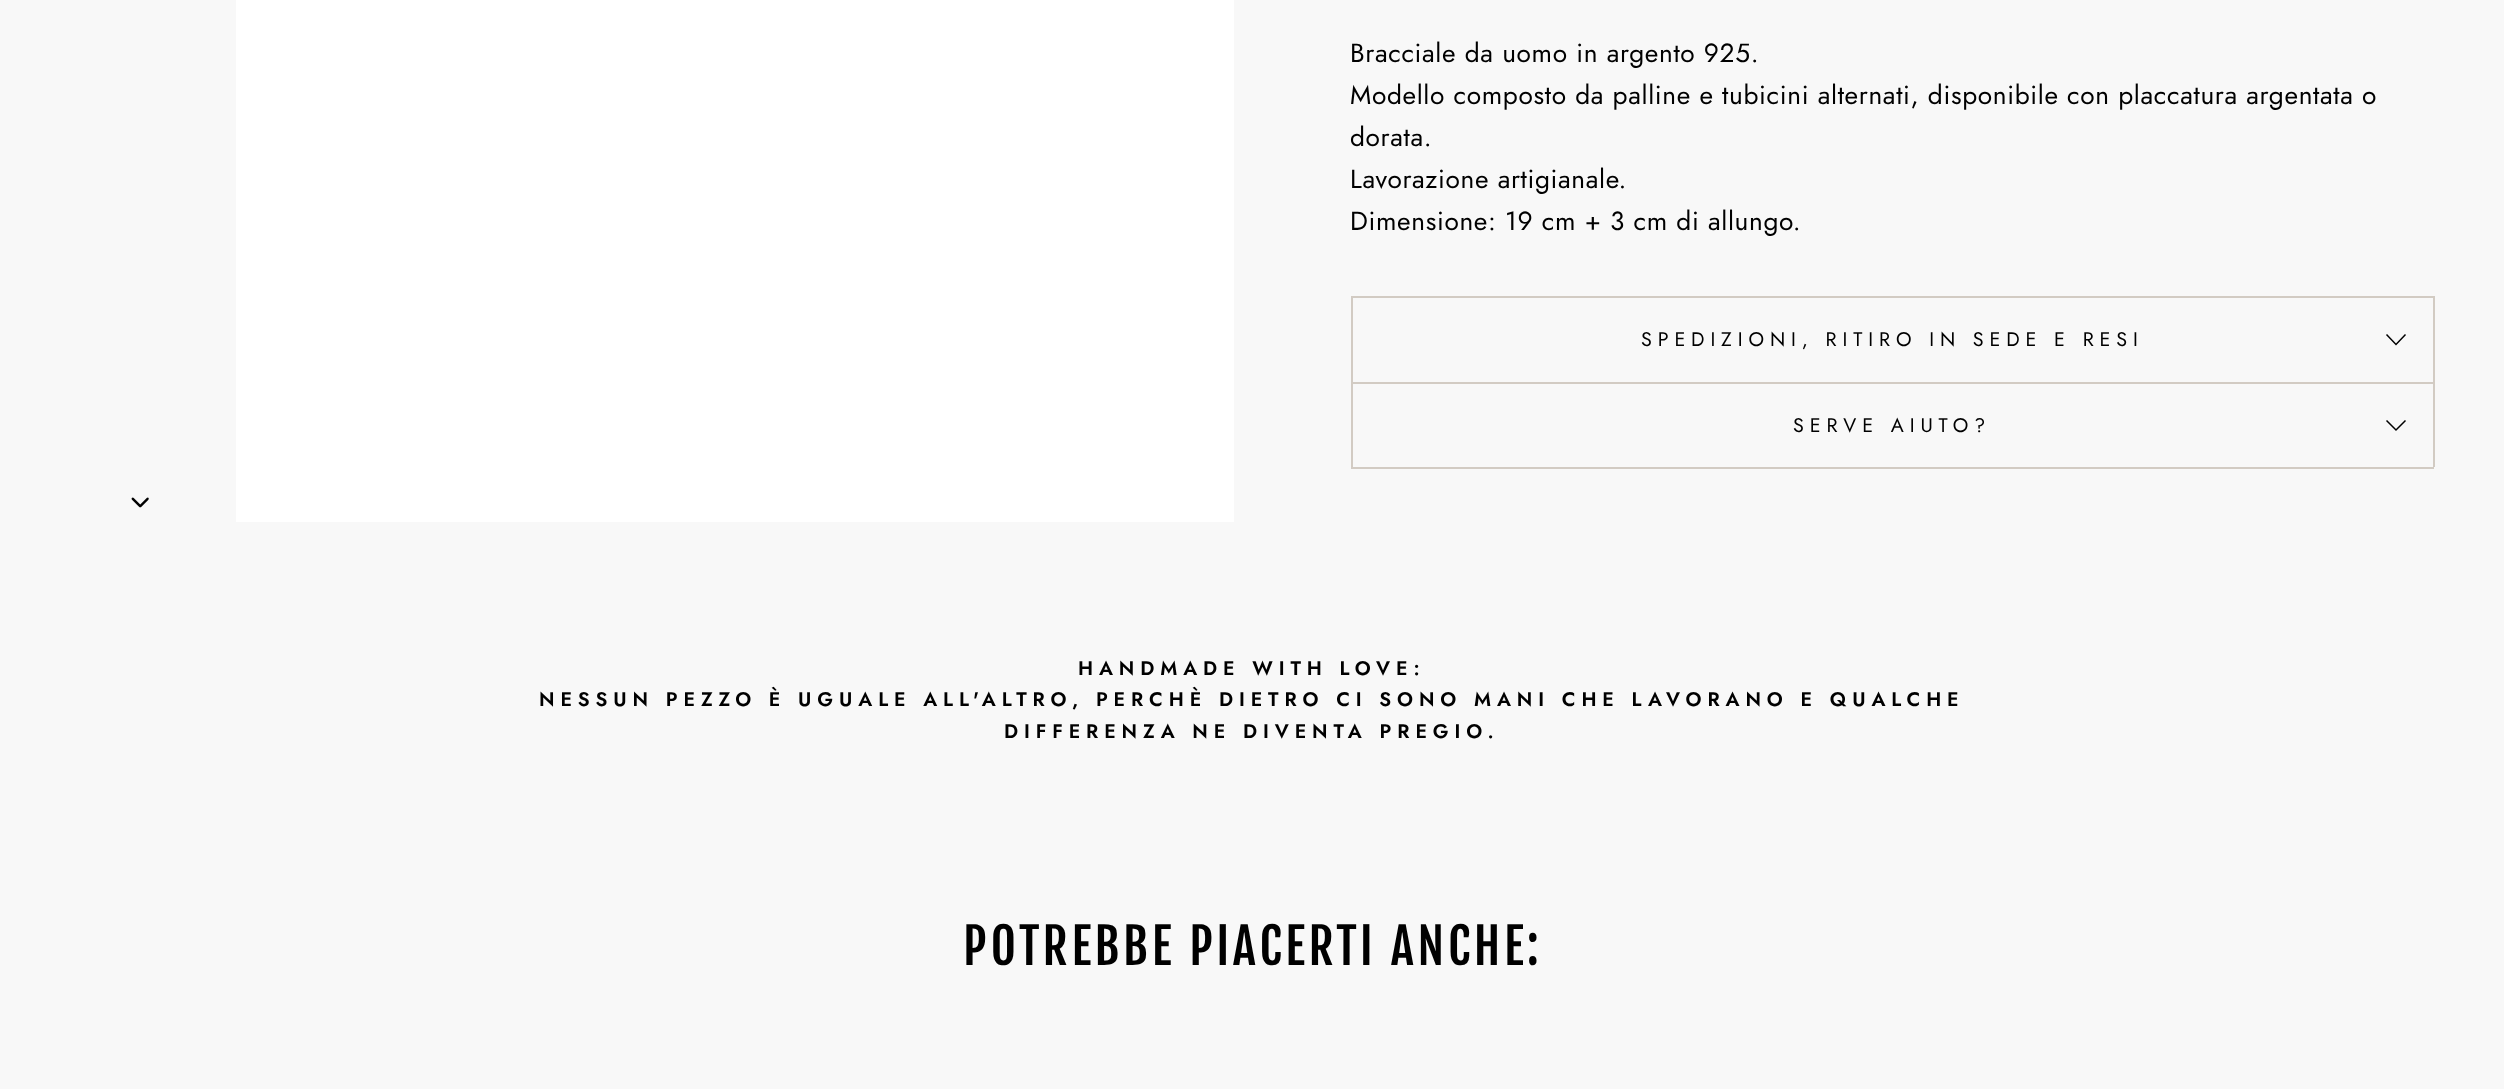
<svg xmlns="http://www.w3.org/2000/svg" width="2504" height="1089">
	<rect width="100%" height="100%" fill="#F8F8F8" />
	<image x="131" y="497" width="18" height="11" href="assets/img1.png" />
	<rect x="236" y="0" width="998" height="522" fill="#FFFFFF" />
	<g font-family="Jost" font-size="26.25" letter-spacing="0.65" fill="#000000">
		<text x="1350" y="62">Bracciale da uomo in argento 925.</text>
		<text x="1350" y="104">Modello composto da palline e tubicini alternati, disponibile con placcatura argentata o</text>
		<text x="1350" y="146">dorata.</text>
		<text x="1350" y="188">Lavorazione artigianale.</text>
		<text x="1350" y="230">Dimensione: 19 cm + 3 cm di allungo.</text>
	</g>
	<rect x="1351" y="467" width="1083" height="2" fill="#D2CBC3" />
	<rect x="1351" y="296" width="1083" height="2" fill="#D2CBC3" />
	<rect x="2433" y="296" width="2" height="86" fill="#D2CBC3" />
	<rect x="1351" y="296" width="2" height="86" fill="#D2CBC3" />
	<text x="1641" y="346" font-family="Jost" font-size="19.7" letter-spacing="5.9" fill="#000000">SPEDIZIONI, RITIRO IN SEDE E RESI</text>
	<path d="M2386.5 334.5L2396 344.5L2405.5 334.5" fill="none" stroke="#000000" stroke-width="1.5" />
	<rect x="1351" y="382" width="1083" height="2" fill="#D2CBC3" />
	<rect x="2433" y="382" width="2" height="85" fill="#D2CBC3" />
	<rect x="1351" y="382" width="2" height="85" fill="#D2CBC3" />
	<text x="1793" y="432" font-family="Jost" font-size="19.7" letter-spacing="5.9" fill="#000000">SERVE AIUTO?</text>
	<path d="M2386.5 420.5L2396 430L2405.5 420.5" fill="none" stroke="#000000" stroke-width="1.5" />
	<g font-family="Jost" font-size="19.7" font-weight="600" letter-spacing="5.9" fill="#000000">
		<text x="1078" y="675">HANDMADE WITH LOVE:</text>
		<text x="539" y="706">NESSUN PEZZO È UGUALE ALL'ALTRO, PERCHÈ DIETRO CI SONO MANI CHE LAVORANO E QUALCHE</text>
		<text x="1004" y="738">DIFFERENZA NE DIVENTA PREGIO.</text>
	</g>
	<text x="963" y="965" font-family="Fjalla One" font-size="49" letter-spacing="3.7" fill="#000000">POTREBBE PIACERTI ANCHE:</text>
</svg>
